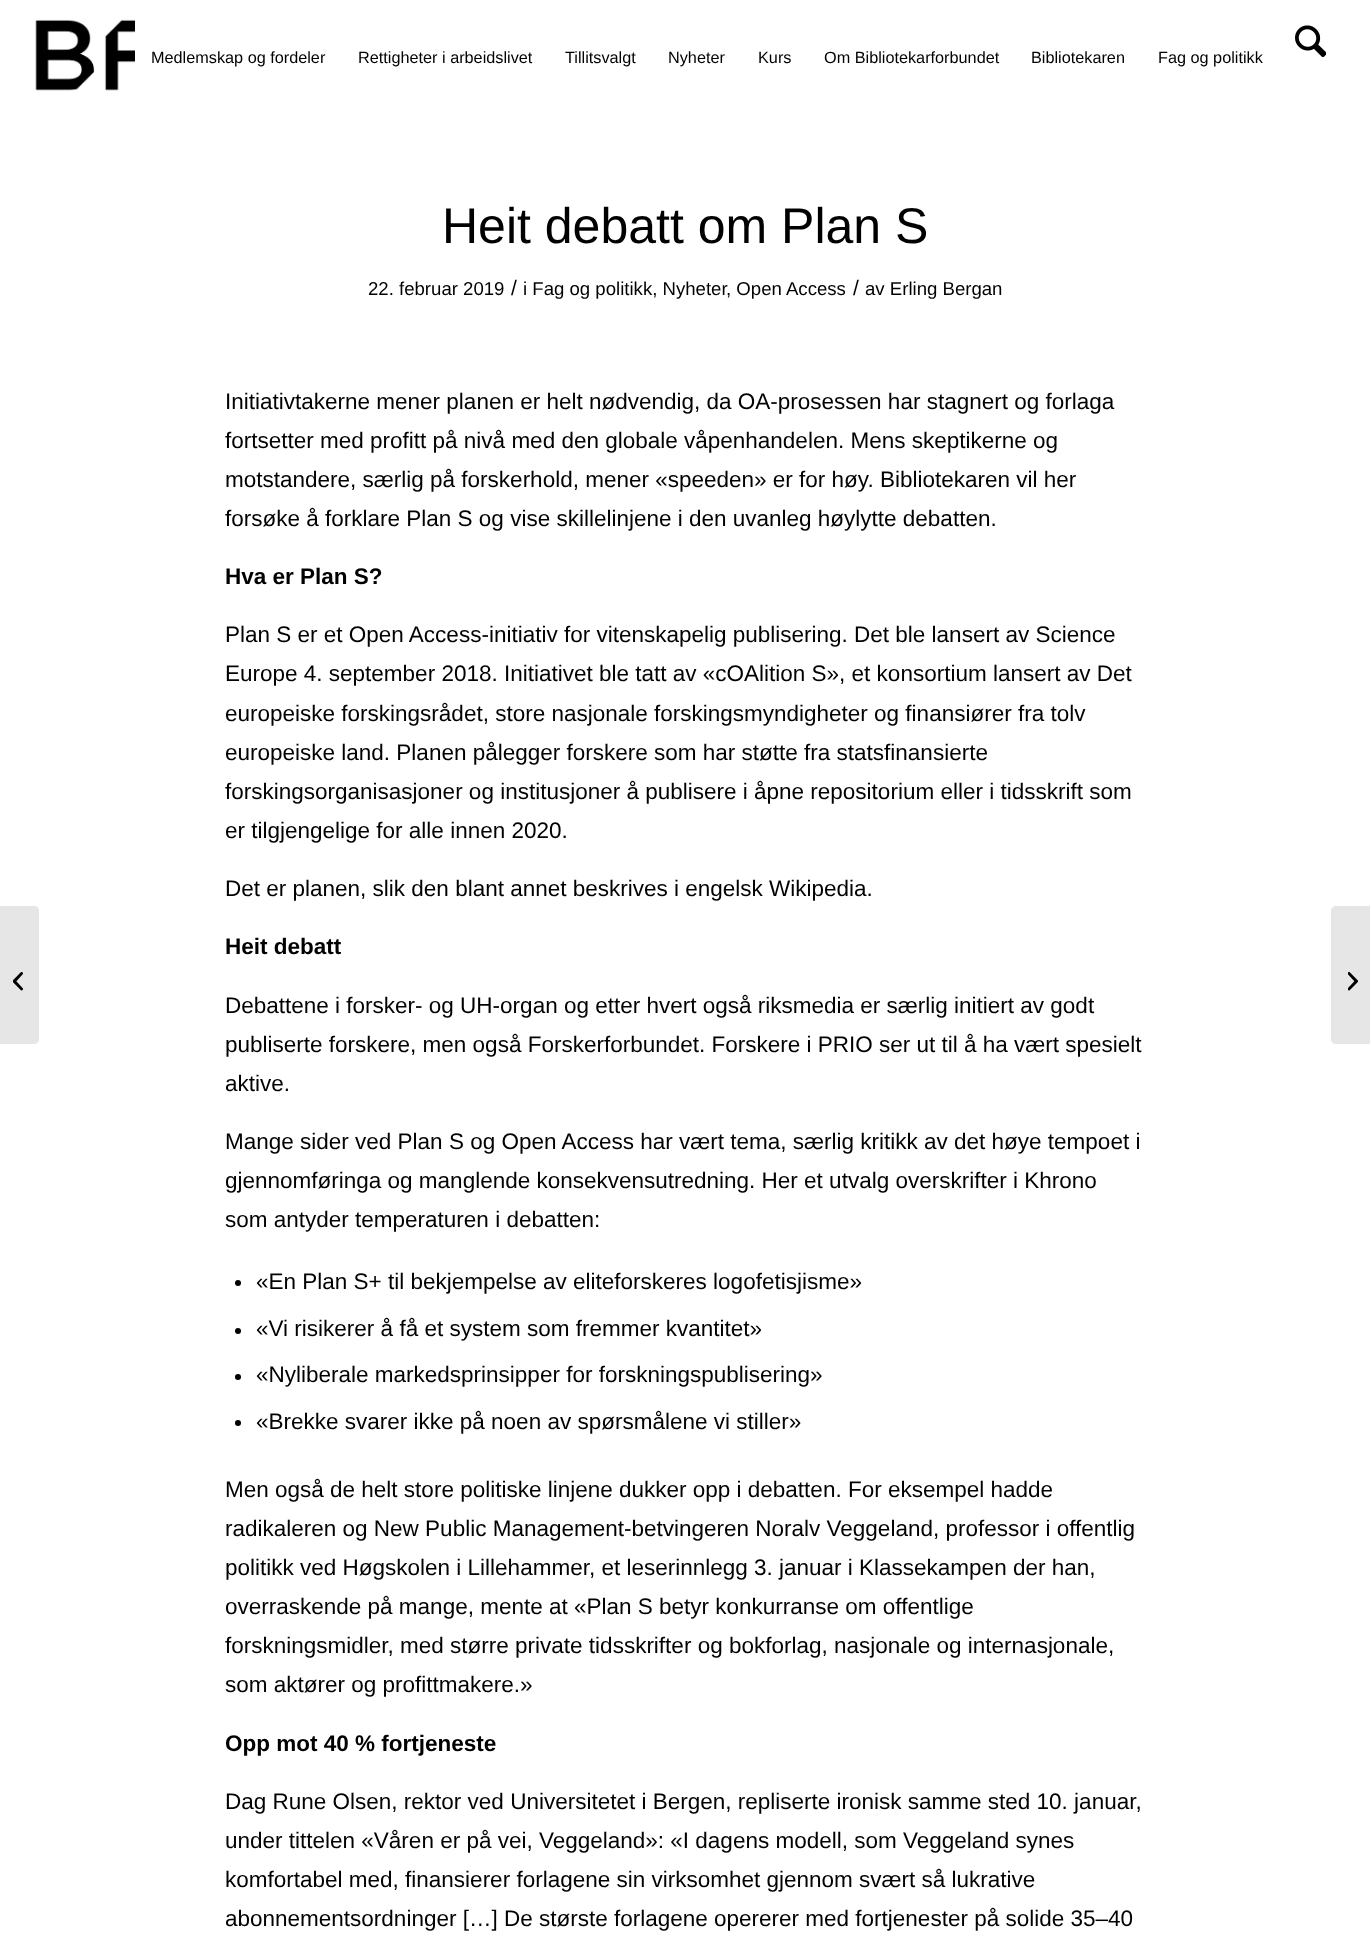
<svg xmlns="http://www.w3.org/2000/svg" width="1370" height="1949">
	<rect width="100%" height="100%" fill="#FFFFFF" />
	<image x="35" y="19" width="100" height="72" href="assets/img1.png" />
	<g font-family="Liberation Sans" font-size="16.25" fill="#000000">
		<text x="151" y="63">Medlemskap og fordeler</text>
		<text x="358" y="63">Rettigheter i arbeidslivet</text>
		<text x="565" y="63">Tillitsvalgt</text>
		<text x="668" y="63">Nyheter</text>
		<text x="758" y="63">Kurs</text>
		<text x="824" y="63">Om Bibliotekarforbundet</text>
		<text x="1031" y="63">Bibliotekaren</text>
		<text x="1158" y="63">Fag og politikk</text>
	</g>
	<image x="1295" y="25" width="31" height="33" href="assets/img2.png" />
	<path d="M0 906H34C37 906 39 908 39 911V1039C39 1042 37 1044 34 1044H0Z" fill="#E6E6E6" />
	<image x="13" y="972" width="10" height="19" href="assets/img3.png" />
	<text x="442" y="243" font-family="Liberation Sans" font-size="50" fill="#000000">Heit debatt om Plan S</text>
	<text x="368" y="295" font-family="Liberation Sans" font-size="18.6" fill="#000000">22. februar 2019</text>
	<text x="511" y="295" font-family="Liberation Sans" font-size="21" fill="#000000">/</text>
	<g font-family="Liberation Sans" font-size="18.6" fill="#000000">
		<text x="523" y="295">i Fag og politikk, Nyheter</text>
		<text x="726" y="295">, Open Access</text>
	</g>
	<text x="853" y="295" font-family="Liberation Sans" font-size="21" fill="#000000">/</text>
	<text x="865" y="295" font-family="Liberation Sans" font-size="18.6" fill="#000000">av Erling Bergan</text>
	<g font-family="Liberation Sans" font-size="22.5" fill="#000000">
		<text x="225" y="409">Initiativtakerne mener planen er helt nødvendig, da OA-prosessen har stagnert og forlaga</text>
		<text x="225" y="448">fortsetter med profitt på nivå med den globale våpenhandelen. Mens skeptikerne og</text>
		<text x="225" y="487">motstandere, særlig på forskerhold, mener «speeden» er for høy. Bibliotekaren vil her</text>
		<text x="225" y="526">forsøke å forklare Plan S og vise skillelinjene i den uvanleg høylytte debatten.</text>
	</g>
	<text x="225" y="584" font-family="Liberation Sans" font-size="22.5" font-weight="700" fill="#000000">Hva er Plan S?</text>
	<g font-family="Liberation Sans" font-size="22.5" fill="#000000">
		<text x="225" y="642">Plan S er et Open Access-initiativ for vitenskapelig publisering. Det ble lansert av Science</text>
		<text x="225" y="681">Europe 4. september 2018. Initiativet ble tatt av «cOAlition S», et konsortium lansert av Det</text>
		<text x="225" y="721">europeiske forskingsrådet, store nasjonale forskingsmyndigheter og finansiører fra tolv</text>
		<text x="225" y="760">europeiske land. Planen pålegger forskere som har støtte fra statsfinansierte</text>
		<text x="225" y="799">forskingsorganisasjoner og institusjoner å publisere i åpne repositorium eller i tidsskrift som</text>
		<text x="225" y="838">er tilgjengelige for alle innen 2020.</text>
		<text x="225" y="896">Det er planen, slik den blant annet beskrives i engelsk Wikipedia.</text>
	</g>
	<text x="225" y="954" font-family="Liberation Sans" font-size="22.5" font-weight="700" fill="#000000">Heit debatt</text>
	<g font-family="Liberation Sans" font-size="22.5" fill="#000000">
		<text x="225" y="1013">Debattene i forsker- og UH-organ og etter hvert også riksmedia er særlig initiert av godt</text>
		<text x="225" y="1052">publiserte forskere, men også Forskerforbundet. Forskere i PRIO ser ut til å ha vært spesielt</text>
		<text x="225" y="1091">aktive.</text>
		<text x="225" y="1149">Mange sider ved Plan S og Open Access har vært tema, særlig kritikk av det høye tempoet i</text>
		<text x="225" y="1188">gjennomføringa og manglende konsekvensutredning. Her et utvalg overskrifter i Khrono</text>
		<text x="225" y="1227">som antyder temperaturen i debatten:</text>
	</g>
	<circle cx="238" cy="1283" r="3" fill="#000000" />
	<text x="256" y="1289" font-family="Liberation Sans" font-size="22.5" fill="#000000">«En Plan S+ til bekjempelse av eliteforskeres logofetisjisme»</text>
	<circle cx="238" cy="1331" r="3" fill="#000000" />
	<text x="256" y="1336" font-family="Liberation Sans" font-size="22.5" fill="#000000">«Vi risikerer å få et system som fremmer kvantitet»</text>
	<circle cx="238" cy="1377" r="3" fill="#000000" />
	<text x="256" y="1382" font-family="Liberation Sans" font-size="22.5" fill="#000000">«Nyliberale markedsprinsipper for forskningspublisering»</text>
	<circle cx="238" cy="1423" r="3" fill="#000000" />
	<g font-family="Liberation Sans" font-size="22.5" fill="#000000">
		<text x="256" y="1429">«Brekke svarer ikke på noen av spørsmålene vi stiller»</text>
		<text x="225" y="1497">Men også de helt store politiske linjene dukker opp i debatten. For eksempel hadde</text>
		<text x="225" y="1536">radikaleren og New Public Management-betvingeren Noralv Veggeland, professor i offentlig</text>
		<text x="225" y="1575">politikk ved Høgskolen i Lillehammer, et leserinnlegg 3. januar i Klassekampen der han,</text>
		<text x="225" y="1614">overraskende på mange, mente at «Plan S betyr konkurranse om offentlige</text>
		<text x="225" y="1653">forskningsmidler, med større private tidsskrifter og bokforlag, nasjonale og internasjonale,</text>
		<text x="225" y="1692">som aktører og profittmakere.»</text>
	</g>
	<text x="225" y="1751" font-family="Liberation Sans" font-size="22.5" font-weight="700" fill="#000000">Opp mot 40 % fortjeneste</text>
	<g font-family="Liberation Sans" font-size="22.5" fill="#000000">
		<text x="225" y="1809">Dag Rune Olsen, rektor ved Universitetet i Bergen, repliserte ironisk samme sted 10. januar,</text>
		<text x="225" y="1848">under tittelen «Våren er på vei, Veggeland»: «I dagens modell, som Veggeland synes</text>
		<text x="225" y="1887">komfortabel med, finansierer forlagene sin virksomhet gjennom svært så lukrative</text>
		<text x="225" y="1926">abonnementsordninger […] De største forlagene opererer med fortjenester på solide 35–40</text>
	</g>
	<path d="M1336 906H1370V1044H1336C1333 1044 1331 1042 1331 1039V911C1331 908 1333 906 1336 906Z" fill="#E6E6E6" />
	<image x="1348" y="972" width="10" height="19" href="assets/img4.png" />
</svg>
